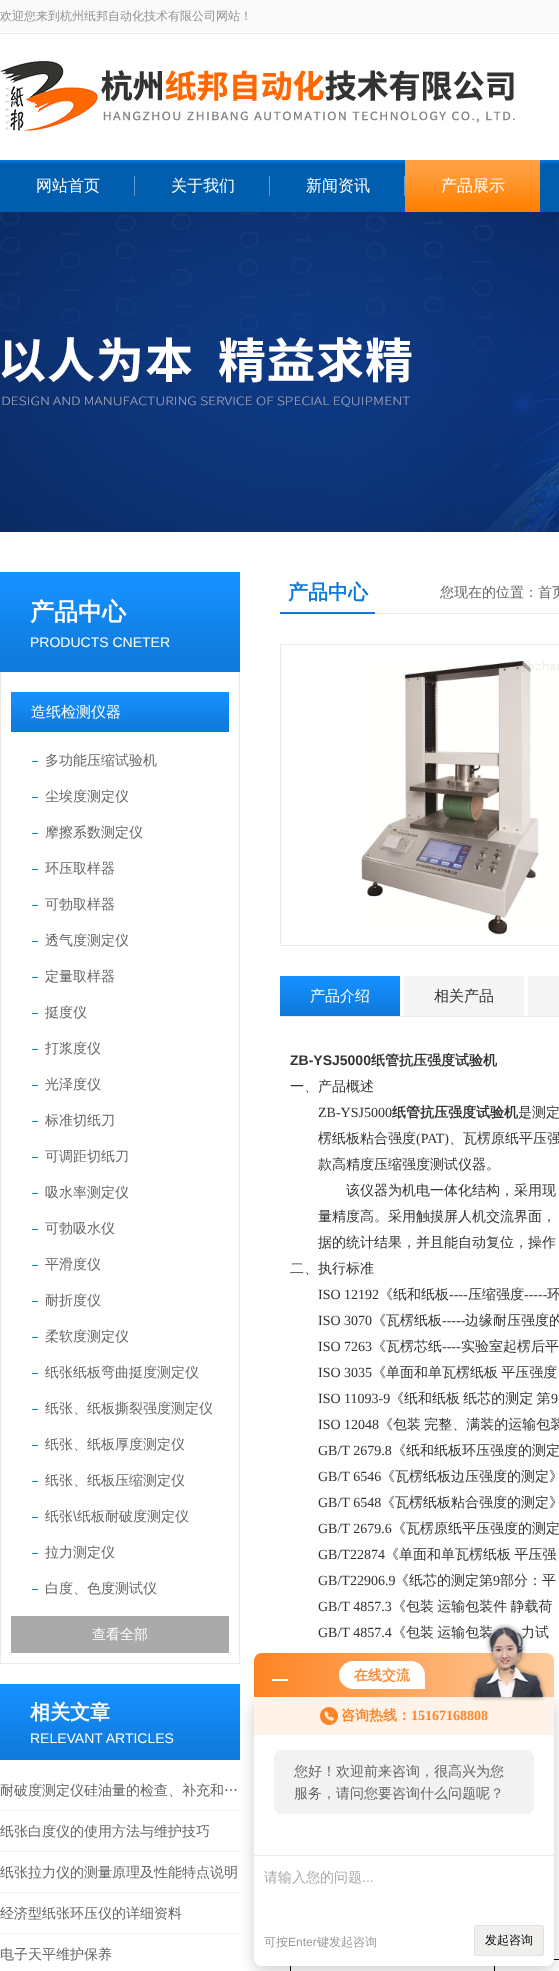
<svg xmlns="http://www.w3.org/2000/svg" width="559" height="1971">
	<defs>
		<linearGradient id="g1" gradientUnits="userSpaceOnUse" x1="254" y1="1675" x2="554" y2="1675"><stop offset="0" stop-color="#FF8324" /><stop offset="1" stop-color="#FECB9C" /></linearGradient>
	</defs>
	<rect width="100%" height="100%" fill="#FFFFFF" />
	<image x="0" y="0" width="559" height="34" href="assets/img1.png" />
	<text x="0" y="20" font-family="WenQuanYi Zen Hei" font-size="12" font-weight="500" fill="#929091">欢迎您来到杭州纸邦自动化技术有限公司网站！</text>
	<image x="0" y="61" width="515" height="70" href="assets/img2.png" />
	<image x="0" y="160" width="559" height="52" href="assets/img3.png" />
	<image x="134" y="176" width="1" height="20" href="assets/img4.png" />
	<text x="36" y="191" font-family="WenQuanYi Zen Hei" font-size="16" font-weight="500" fill="#FFFFFF">网站首页</text>
	<image x="269" y="176" width="1" height="20" href="assets/img4.png" />
	<text x="171" y="191" font-family="WenQuanYi Zen Hei" font-size="16" font-weight="500" fill="#FFFFFF">关于我们</text>
	<image x="404" y="176" width="1" height="20" href="assets/img4.png" />
	<text x="306" y="191" font-family="WenQuanYi Zen Hei" font-size="16" font-weight="500" fill="#FFFFFF">新闻资讯</text>
	<image x="405" y="160" width="135" height="52" href="assets/img5.png" />
	<text x="441" y="191" font-family="WenQuanYi Zen Hei" font-size="16" font-weight="500" fill="#FFFFFF">产品展示</text>
	<image x="0" y="212" width="559" height="320" href="assets/img6.png" />
	<image x="0" y="572" width="240" height="100" href="assets/img7.png" />
	<text x="30" y="620" font-family="WenQuanYi Zen Hei" font-size="24" font-weight="700" fill="#FFFFFF">产品中心</text>
	<text x="30" y="647" font-family="Liberation Sans" font-size="14" fill="#FFFFFF">PRODUCTS CNETER</text>
	<rect x="239" y="672" width="1" height="992" fill="#EAEAEA" />
	<rect x="0" y="1663" width="240" height="1" fill="#EAEAEA" />
	<rect x="0" y="672" width="1" height="992" fill="#EAEAEA" />
	<image x="11" y="692" width="218" height="40" href="assets/img8.png" />
	<text x="31" y="717" font-family="WenQuanYi Zen Hei" font-size="15" font-weight="500" fill="#FFFFFF">造纸检测仪器</text>
	<rect x="32" y="761" width="6" height="1" fill="#0F7ADB" />
	<text x="45" y="765" font-family="WenQuanYi Zen Hei" font-size="14" font-weight="500" fill="#666666">多功能压缩试验机</text>
	<rect x="32" y="797" width="6" height="1" fill="#0F7ADB" />
	<text x="45" y="801" font-family="WenQuanYi Zen Hei" font-size="14" font-weight="500" fill="#666666">尘埃度测定仪</text>
	<rect x="32" y="833" width="6" height="1" fill="#0F7ADB" />
	<text x="45" y="837" font-family="WenQuanYi Zen Hei" font-size="14" font-weight="500" fill="#666666">摩擦系数测定仪</text>
	<rect x="32" y="869" width="6" height="1" fill="#0F7ADB" />
	<text x="45" y="873" font-family="WenQuanYi Zen Hei" font-size="14" font-weight="500" fill="#666666">环压取样器</text>
	<rect x="32" y="905" width="6" height="1" fill="#0F7ADB" />
	<text x="45" y="909" font-family="WenQuanYi Zen Hei" font-size="14" font-weight="500" fill="#666666">可勃取样器</text>
	<rect x="32" y="941" width="6" height="1" fill="#0F7ADB" />
	<text x="45" y="945" font-family="WenQuanYi Zen Hei" font-size="14" font-weight="500" fill="#666666">透气度测定仪</text>
	<rect x="32" y="977" width="6" height="1" fill="#0F7ADB" />
	<text x="45" y="981" font-family="WenQuanYi Zen Hei" font-size="14" font-weight="500" fill="#666666">定量取样器</text>
	<rect x="32" y="1013" width="6" height="1" fill="#0F7ADB" />
	<text x="45" y="1017" font-family="WenQuanYi Zen Hei" font-size="14" font-weight="500" fill="#666666">挺度仪</text>
	<rect x="32" y="1049" width="6" height="1" fill="#0F7ADB" />
	<text x="45" y="1053" font-family="WenQuanYi Zen Hei" font-size="14" font-weight="500" fill="#666666">打浆度仪</text>
	<rect x="32" y="1085" width="6" height="1" fill="#0F7ADB" />
	<text x="45" y="1089" font-family="WenQuanYi Zen Hei" font-size="14" font-weight="500" fill="#666666">光泽度仪</text>
	<rect x="32" y="1121" width="6" height="1" fill="#0F7ADB" />
	<text x="45" y="1125" font-family="WenQuanYi Zen Hei" font-size="14" font-weight="500" fill="#666666">标准切纸刀</text>
	<rect x="32" y="1157" width="6" height="1" fill="#0F7ADB" />
	<text x="45" y="1161" font-family="WenQuanYi Zen Hei" font-size="14" font-weight="500" fill="#666666">可调距切纸刀</text>
	<rect x="32" y="1193" width="6" height="1" fill="#0F7ADB" />
	<text x="45" y="1197" font-family="WenQuanYi Zen Hei" font-size="14" font-weight="500" fill="#666666">吸水率测定仪</text>
	<rect x="32" y="1229" width="6" height="1" fill="#0F7ADB" />
	<text x="45" y="1233" font-family="WenQuanYi Zen Hei" font-size="14" font-weight="500" fill="#666666">可勃吸水仪</text>
	<rect x="32" y="1265" width="6" height="1" fill="#0F7ADB" />
	<text x="45" y="1269" font-family="WenQuanYi Zen Hei" font-size="14" font-weight="500" fill="#666666">平滑度仪</text>
	<rect x="32" y="1301" width="6" height="1" fill="#0F7ADB" />
	<text x="45" y="1305" font-family="WenQuanYi Zen Hei" font-size="14" font-weight="500" fill="#666666">耐折度仪</text>
	<rect x="32" y="1337" width="6" height="1" fill="#0F7ADB" />
	<text x="45" y="1341" font-family="WenQuanYi Zen Hei" font-size="14" font-weight="500" fill="#666666">柔软度测定仪</text>
	<rect x="32" y="1373" width="6" height="1" fill="#0F7ADB" />
	<text x="45" y="1377" font-family="WenQuanYi Zen Hei" font-size="14" font-weight="500" fill="#666666">纸张纸板弯曲挺度测定仪</text>
	<rect x="32" y="1409" width="6" height="1" fill="#0F7ADB" />
	<text x="45" y="1413" font-family="WenQuanYi Zen Hei" font-size="14" font-weight="500" fill="#666666">纸张、纸板撕裂强度测定仪</text>
	<rect x="32" y="1445" width="6" height="1" fill="#0F7ADB" />
	<text x="45" y="1449" font-family="WenQuanYi Zen Hei" font-size="14" font-weight="500" fill="#666666">纸张、纸板厚度测定仪</text>
	<rect x="32" y="1481" width="6" height="1" fill="#0F7ADB" />
	<text x="45" y="1485" font-family="WenQuanYi Zen Hei" font-size="14" font-weight="500" fill="#666666">纸张、纸板压缩测定仪</text>
	<rect x="32" y="1517" width="6" height="1" fill="#0F7ADB" />
	<text x="45" y="1521" font-family="WenQuanYi Zen Hei" font-size="14" font-weight="500" fill="#666666">纸张</text>
	<text x="73" y="1521" font-family="Liberation Sans" font-size="14" fill="#666666">\</text>
	<text x="77" y="1521" font-family="WenQuanYi Zen Hei" font-size="14" font-weight="500" fill="#666666">纸板耐破度测定仪</text>
	<rect x="32" y="1553" width="6" height="1" fill="#0F7ADB" />
	<text x="45" y="1557" font-family="WenQuanYi Zen Hei" font-size="14" font-weight="500" fill="#666666">拉力测定仪</text>
	<rect x="32" y="1589" width="6" height="1" fill="#0F7ADB" />
	<text x="45" y="1593" font-family="WenQuanYi Zen Hei" font-size="14" font-weight="500" fill="#666666">白度、色度测试仪</text>
	<rect x="11" y="1616" width="218" height="37" fill="#AAAAAA" />
	<text x="92" y="1639" font-family="WenQuanYi Zen Hei" font-size="14" font-weight="500" fill="#FFFFFF">查看全部</text>
	<image x="0" y="1684" width="240" height="76" href="assets/img9.png" />
	<text x="30" y="1719" font-family="WenQuanYi Zen Hei" font-size="20" font-weight="700" fill="#FFFFFF">相关文章</text>
	<text x="30" y="1743" font-family="Liberation Sans" font-size="14" fill="#FFFFFF">RELEVANT ARTICLES</text>
	<path d="M0 1810.5H240" fill="none" stroke="#EAEAEA" stroke-dasharray="1 1" />
	<text x="0" y="1795" font-family="WenQuanYi Zen Hei" font-size="14" font-weight="500" fill="#666666">耐破度测定仪硅油量的检查、补充和…</text>
	<path d="M0 1851.5H240" fill="none" stroke="#EAEAEA" stroke-dasharray="1 1" />
	<text x="0" y="1836" font-family="WenQuanYi Zen Hei" font-size="14" font-weight="500" fill="#666666">纸张白度仪的使用方法与维护技巧</text>
	<path d="M0 1892.5H240" fill="none" stroke="#EAEAEA" stroke-dasharray="1 1" />
	<text x="0" y="1877" font-family="WenQuanYi Zen Hei" font-size="14" font-weight="500" fill="#666666">纸张拉力仪的测量原理及性能特点说明</text>
	<path d="M0 1933.5H240" fill="none" stroke="#EAEAEA" stroke-dasharray="1 1" />
	<g font-family="WenQuanYi Zen Hei" font-size="14" font-weight="500" fill="#666666">
		<text x="0" y="1918">经济型纸张环压仪的详细资料</text>
		<text x="0" y="1959">电子天平维护保养</text>
	</g>
	<rect x="375" y="613" width="184" height="1" fill="#EAEAEA" />
	<rect x="280" y="612" width="95" height="2" fill="#0F7ADB" />
	<text x="288" y="599" font-family="WenQuanYi Zen Hei" font-size="20" font-weight="700" fill="#0F7ADB">产品中心</text>
	<text x="440" y="597" font-family="WenQuanYi Zen Hei" font-size="14" font-weight="500" fill="#666666">您现在的位置：首页</text>
	<rect x="280.5" y="644.5" width="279" height="301" fill="none" stroke="#EAEAEA" />
	<image x="361" y="660" width="198" height="275" href="assets/img10.png" />
	<rect x="280" y="1016" width="279" height="1" fill="#EAEAEA" />
	<image x="280" y="976" width="120" height="40" href="assets/img11.png" />
	<text x="310" y="1001" font-family="WenQuanYi Zen Hei" font-size="15" font-weight="500" fill="#FFFFFF">产品介绍</text>
	<rect x="404" y="976" width="120" height="40" fill="#F5F5F5" />
	<text x="434" y="1001" font-family="WenQuanYi Zen Hei" font-size="15" font-weight="500" fill="#333333">相关产品</text>
	<rect x="528" y="976" width="31" height="40" fill="#F5F5F5" />
	<text x="290" y="1065" font-family="Liberation Sans" font-size="14" font-weight="700" fill="#333333">ZB-YSJ5000</text>
	<text x="371" y="1065" font-family="WenQuanYi Zen Hei" font-size="14" font-weight="700" fill="#333333">纸管抗压强度试验机</text>
	<text x="290" y="1091" font-family="WenQuanYi Zen Hei" font-size="14" font-weight="500" fill="#333333">一、产品概述</text>
	<text x="318" y="1117" font-family="Liberation Serif" font-size="14" fill="#333333">ZB-YSJ5000</text>
	<text x="392" y="1117" font-family="WenQuanYi Zen Hei" font-size="14" font-weight="700" fill="#333333">纸管抗压强度试验机</text>
	<g font-family="WenQuanYi Zen Hei" font-size="14" font-weight="500" fill="#333333">
		<text x="518" y="1117">是测定</text>
		<text x="318" y="1143">楞纸板粘合强度</text>
	</g>
	<text x="416" y="1143" font-family="Liberation Serif" font-size="14" fill="#333333">(PAT)</text>
	<g font-family="WenQuanYi Zen Hei" font-size="14" font-weight="500" fill="#333333">
		<text x="449" y="1143">、瓦楞原纸平压强</text>
		<text x="318" y="1169">款高精度压缩强度测试仪器。</text>
		<text x="346" y="1195">该仪器为机电一体化结构，采用现</text>
		<text x="318" y="1221">量精度高。采用触摸屏人机交流界面，</text>
		<text x="318" y="1247">据的统计结果，并且能自动复位，操作</text>
		<text x="290" y="1273">二、执行标准</text>
	</g>
	<text x="318" y="1299" font-family="Liberation Serif" font-size="14" fill="#333333">ISO 12192</text>
	<text x="379" y="1299" font-family="WenQuanYi Zen Hei" font-size="14" font-weight="500" fill="#333333">《纸和纸板</text>
	<text x="449" y="1299" font-family="Liberation Serif" font-size="14" fill="#333333">----</text>
	<text x="468" y="1299" font-family="WenQuanYi Zen Hei" font-size="14" font-weight="500" fill="#333333">压缩强度</text>
	<text x="524" y="1299" font-family="Liberation Serif" font-size="14" fill="#333333">-----</text>
	<text x="547" y="1299" font-family="WenQuanYi Zen Hei" font-size="14" font-weight="500" fill="#333333">环</text>
	<text x="318" y="1325" font-family="Liberation Serif" font-size="14" fill="#333333">ISO 3070</text>
	<text x="372" y="1325" font-family="WenQuanYi Zen Hei" font-size="14" font-weight="500" fill="#333333">《瓦楞纸板</text>
	<text x="442" y="1325" font-family="Liberation Serif" font-size="14" fill="#333333">-----</text>
	<text x="465" y="1325" font-family="WenQuanYi Zen Hei" font-size="14" font-weight="500" fill="#333333">边缘耐压强度的</text>
	<text x="318" y="1351" font-family="Liberation Serif" font-size="14" fill="#333333">ISO 7263</text>
	<text x="372" y="1351" font-family="WenQuanYi Zen Hei" font-size="14" font-weight="500" fill="#333333">《瓦楞芯纸</text>
	<text x="442" y="1351" font-family="Liberation Serif" font-size="14" fill="#333333">----</text>
	<text x="461" y="1351" font-family="WenQuanYi Zen Hei" font-size="14" font-weight="500" fill="#333333">实验室起楞后平</text>
	<text x="318" y="1377" font-family="Liberation Serif" font-size="14" fill="#333333">ISO 3035</text>
	<text x="372" y="1377" word-spacing="-1" font-family="WenQuanYi Zen Hei" font-size="14" font-weight="500" fill="#333333">《单面和单瓦楞纸板 平压强度</text>
	<text x="318" y="1403" font-family="Liberation Serif" font-size="14" fill="#333333">ISO 11093-9</text>
	<text x="390" y="1403" word-spacing="-1" font-family="WenQuanYi Zen Hei" font-size="14" font-weight="500" fill="#333333">《纸和纸板 纸芯的测定 第</text>
	<g font-family="Liberation Serif" font-size="14" fill="#333333">
		<text x="551" y="1403">9</text>
		<text x="318" y="1429">ISO 12048</text>
	</g>
	<text x="379" y="1429" word-spacing="-1" font-family="WenQuanYi Zen Hei" font-size="14" font-weight="500" fill="#333333">《包装 完整、满装的运输包装</text>
	<text x="318" y="1455" font-family="Liberation Serif" font-size="14" fill="#333333">GB/T 2679.8</text>
	<text x="392" y="1455" font-family="WenQuanYi Zen Hei" font-size="14" font-weight="500" fill="#333333">《纸和纸板环压强度的测定</text>
	<text x="318" y="1481" font-family="Liberation Serif" font-size="14" fill="#333333">GB/T 6546</text>
	<text x="381" y="1481" font-family="WenQuanYi Zen Hei" font-size="14" font-weight="500" fill="#333333">《瓦楞纸板边压强度的测定》</text>
	<text x="318" y="1507" font-family="Liberation Serif" font-size="14" fill="#333333">GB/T 6548</text>
	<text x="381" y="1507" font-family="WenQuanYi Zen Hei" font-size="14" font-weight="500" fill="#333333">《瓦楞纸板粘合强度的测定》</text>
	<text x="318" y="1533" font-family="Liberation Serif" font-size="14" fill="#333333">GB/T 2679.6</text>
	<text x="392" y="1533" font-family="WenQuanYi Zen Hei" font-size="14" font-weight="500" fill="#333333">《瓦楞原纸平压强度的测定</text>
	<text x="318" y="1559" font-family="Liberation Serif" font-size="14" fill="#333333">GB/T22874</text>
	<text x="385" y="1559" word-spacing="-1" font-family="WenQuanYi Zen Hei" font-size="14" font-weight="500" fill="#333333">《单面和单瓦楞纸板 平压强</text>
	<text x="318" y="1585" font-family="Liberation Serif" font-size="14" fill="#333333">GB/T22906.9</text>
	<text x="395" y="1585" font-family="WenQuanYi Zen Hei" font-size="14" font-weight="500" fill="#333333">《纸芯的测定第</text>
	<text x="493" y="1585" font-family="Liberation Serif" font-size="14" fill="#333333">9</text>
	<text x="500" y="1585" font-family="WenQuanYi Zen Hei" font-size="14" font-weight="500" fill="#333333">部分：平</text>
	<text x="318" y="1611" font-family="Liberation Serif" font-size="14" fill="#333333">GB/T 4857.3</text>
	<g font-family="WenQuanYi Zen Hei" font-size="14" font-weight="500" fill="#333333">
		<text x="392" y="1611">《</text>
		<text x="406" y="1611" word-spacing="-1">包装 运输包装件 静载荷</text>
	</g>
	<text x="318" y="1637" font-family="Liberation Serif" font-size="14" fill="#333333">GB/T 4857.4</text>
	<g font-family="WenQuanYi Zen Hei" font-size="14" font-weight="500" fill="#333333">
		<text x="392" y="1637">《</text>
		<text x="406" y="1637" word-spacing="-1">包装 运输包装</text>
		<text x="521" y="1637" word-spacing="-1">力试</text>
	</g>
	<rect x="494" y="1959" width="1" height="12" fill="#000000" />
	<rect x="290" y="1959" width="1" height="12" fill="#000000" />
	<rect x="553" y="1959" width="6" height="1" fill="#000000" />
	<rect x="254" y="1701" width="300" height="269" rx="8" fill="#000000" fill-opacity="0.2" filter="blur(8px)" />
	<path d="M262 1653H546C550.5 1653 554 1656.5 554 1661V1697H254V1661C254 1656.5 257.5 1653 262 1653Z" fill="url(#g1)" />
	<rect x="272" y="1679" width="16" height="2" fill="#FFFFFF" />
	<path d="M353 1661H411C418.5 1661 425 1667.5 425 1675V1689H353C345.5 1689 339 1682.5 339 1675C339 1667.5 345.5 1661 353 1661Z" fill="#FFFFFF" />
	<text x="354" y="1680" font-family="WenQuanYi Zen Hei" font-size="14" font-weight="700" fill="#FB8B36">在线交流</text>
	<path d="M254 1697H554V1958C554 1962.5 550.5 1966 546 1966H262C257.5 1966 254 1962.5 254 1958Z" fill="#FFFFFF" />
	<rect x="254" y="1697" width="300" height="38" fill="#FFF3E9" />
	<image x="470" y="1623" width="76" height="78" href="assets/img12.png" />
	<image x="320" y="1707" width="18" height="18" href="assets/img13.png" />
	<text x="341" y="1720" font-family="WenQuanYi Zen Hei" font-size="14" font-weight="700" fill="#FF8426">咨询热线：</text>
	<text x="411" y="1720" font-family="Liberation Serif" font-size="14" font-weight="700" fill="#FF8426">15167168808</text>
	<rect x="274" y="1750" width="260" height="64" rx="8" fill="#F2F2F2" />
	<g font-family="WenQuanYi Zen Hei" font-size="14" font-weight="500" fill="#666666">
		<text x="294" y="1776">您好！欢迎前来咨询，很高兴为您</text>
		<text x="294" y="1798">服务，请问您要咨询什么问题呢？</text>
	</g>
	<rect x="254" y="1855" width="300" height="1" fill="#EAEAEA" />
	<text x="264" y="1882" font-family="WenQuanYi Zen Hei" font-size="14" font-weight="500" fill="#AAAAAA">请输入您的问题</text>
	<text x="362" y="1882" font-family="Liberation Sans" font-size="14" fill="#AAAAAA">...</text>
	<text x="264" y="1946" font-family="WenQuanYi Zen Hei" font-size="12" font-weight="500" fill="#999999">可按</text>
	<text x="288" y="1946" font-family="Liberation Sans" font-size="12" fill="#999999">Enter</text>
	<text x="317" y="1946" font-family="WenQuanYi Zen Hei" font-size="12" font-weight="500" fill="#999999">键发起咨询</text>
	<rect x="474.5" y="1925.5" width="69" height="30" rx="1.5" fill="#F0EFED" stroke="#E2E2E2" />
	<text x="485" y="1944" font-family="WenQuanYi Zen Hei" font-size="12" font-weight="500" fill="#000000">发起咨询</text>
</svg>
